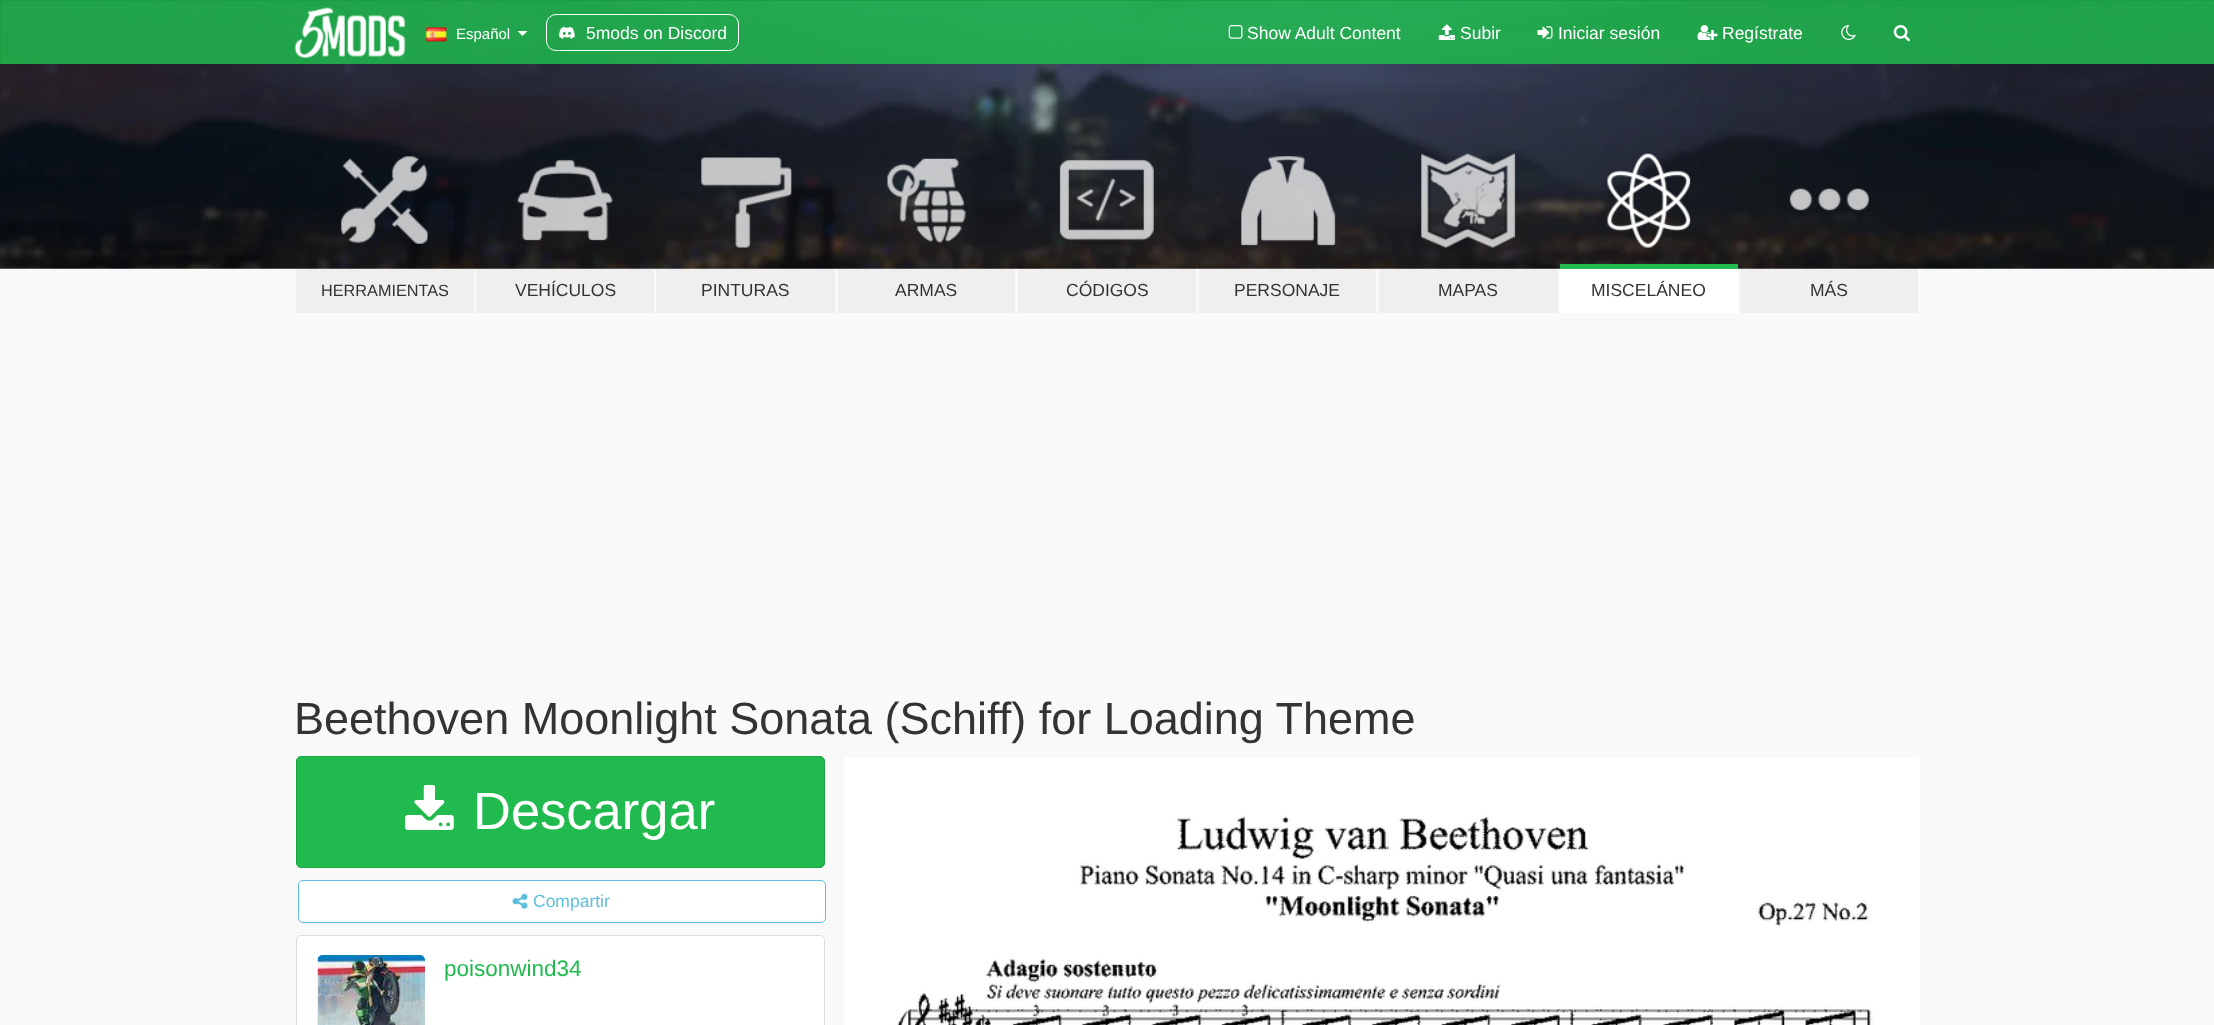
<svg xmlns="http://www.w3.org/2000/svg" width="2214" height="1025">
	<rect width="100%" height="100%" fill="#F9F9F9" />
	<image x="0" y="1" width="2214" height="268" href="assets/img10.png" />
	<rect x="1" y="1" width="2213" height="63" fill="#20BA4E" fill-opacity="0.85" />
	<rect x="0" y="0" width="2214" height="1" fill="#1B9E42" />
	<rect x="0" y="0" width="1" height="64" fill="#1B9E42" />
	<image x="294" y="7" width="112" height="51" href="assets/img1.png" />
	<image x="425" y="27" width="22" height="15" href="assets/img2.png" />
	<text x="456" y="39" font-family="Liberation Sans" font-size="15" fill="#FFFFFF">Español</text>
	<path d="M517.5 31H527.5L522.5 36Z" fill="#FFFFFF" />
	<rect x="546.5" y="14.5" width="192" height="36" rx="9.5" fill="none" stroke="#FFFFFF" />
	<image x="559" y="26" width="16" height="13" href="assets/img3.png" />
	<text x="586" y="39" font-family="Liberation Sans" font-size="17.5" fill="#FFFFFF">5mods on Discord</text>
	<image x="1228" y="25" width="15" height="14" href="assets/img4.png" />
	<text x="1247" y="39" font-family="Liberation Sans" font-size="17.5" fill="#FFFFFF">Show Adult Content</text>
	<image x="1438" y="24" width="17" height="16" href="assets/img5.png" />
	<text x="1460" y="39" font-family="Liberation Sans" font-size="17.5" fill="#FFFFFF">Subir</text>
	<image x="1537" y="26" width="16" height="13" href="assets/img6.png" />
	<text x="1558" y="39" font-family="Liberation Sans" font-size="17.5" fill="#FFFFFF">Iniciar sesión</text>
	<image x="1697" y="25" width="21" height="15" href="assets/img7.png" />
	<text x="1722" y="39" font-family="Liberation Sans" font-size="17.5" fill="#FFFFFF">Regístrate</text>
	<image x="1841" y="25" width="15" height="15" href="assets/img8.png" />
	<image x="1893" y="25" width="17" height="17" href="assets/img9.png" />
	<image x="341" y="156" width="87" height="88" href="assets/img11.png" />
	<rect x="296" y="269" width="178" height="44" fill="#EFEFEF" />
	<text x="321" y="296" font-family="Liberation Sans" font-size="16.25" fill="#333333">HERRAMIENTAS</text>
	<image x="517" y="159" width="96" height="82" href="assets/img12.png" />
	<rect x="476" y="269" width="178" height="44" fill="#EFEFEF" />
	<text x="515" y="296" font-family="Liberation Sans" font-size="17.5" fill="#333333">VEHÍCULOS</text>
	<image x="701" y="157" width="91" height="91" href="assets/img13.png" />
	<rect x="656" y="269" width="179" height="44" fill="#EFEFEF" />
	<text x="701" y="296" font-family="Liberation Sans" font-size="17.5" fill="#333333">PINTURAS</text>
	<image x="887" y="158" width="80" height="85" href="assets/img14.png" />
	<rect x="838" y="269" width="177" height="44" fill="#EFEFEF" />
	<text x="895" y="296" font-family="Liberation Sans" font-size="17.5" fill="#333333">ARMAS</text>
	<image x="1059" y="159" width="95" height="82" href="assets/img15.png" />
	<rect x="1018" y="269" width="178" height="44" fill="#EFEFEF" />
	<text x="1066" y="296" font-family="Liberation Sans" font-size="17.5" fill="#333333">CÓDIGOS</text>
	<image x="1241" y="156" width="95" height="90" href="assets/img16.png" />
	<rect x="1199" y="269" width="177" height="44" fill="#EFEFEF" />
	<text x="1234" y="296" font-family="Liberation Sans" font-size="17.5" fill="#333333">PERSONAJE</text>
	<image x="1421" y="153" width="95" height="95" href="assets/img17.png" />
	<rect x="1379" y="269" width="179" height="44" fill="#EFEFEF" />
	<text x="1438" y="296" font-family="Liberation Sans" font-size="17.5" fill="#333333">MAPAS</text>
	<image x="1607" y="153" width="84" height="95" href="assets/img18.png" />
	<rect x="1560" y="264" width="178" height="5" fill="#20BA4E" />
	<rect x="1560" y="269" width="178" height="44" fill="#FFFFFF" />
	<text x="1591" y="296" font-family="Liberation Sans" font-size="17.5" fill="#333333">MISCELÁNEO</text>
	<image x="1789" y="188" width="80" height="23" href="assets/img19.png" />
	<rect x="1740" y="269" width="178" height="44" fill="#EFEFEF" />
	<text x="1810" y="296" font-family="Liberation Sans" font-size="17.5" fill="#333333">MÁS</text>
	<text x="294" y="734" font-family="Liberation Sans" font-size="45" fill="#333333">Beethoven Moonlight Sonata (Schiff) for Loading Theme</text>
	<rect x="296.5" y="756.5" width="528" height="111" rx="4.5" fill="#20BA4E" stroke="#1CA445" />
	<image x="405" y="785" width="49" height="45" href="assets/img20.png" />
	<text x="473" y="829" font-family="Liberation Sans" font-size="52.5" fill="#FFFFFF">Descargar</text>
	<rect x="298.5" y="880.5" width="527" height="42" rx="4.5" fill="#FFFFFF" stroke="#5BC0DE" />
	<image x="512" y="893" width="16" height="16" href="assets/img21.png" />
	<text x="533" y="907" font-family="Liberation Sans" font-size="17.5" fill="#5BC0DE">Compartir</text>
	<rect x="296.5" y="935.5" width="528" height="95" rx="4.5" fill="#FFFFFF" stroke="#DDDDDD" />
	<image x="317" y="955" width="108" height="70" href="assets/img22.png" />
	<text x="444" y="976" font-family="Liberation Sans" font-size="22.5" fill="#20BA4E">poisonwind34</text>
	<image x="844" y="757" width="1076" height="268" href="assets/img23.png" />
</svg>
